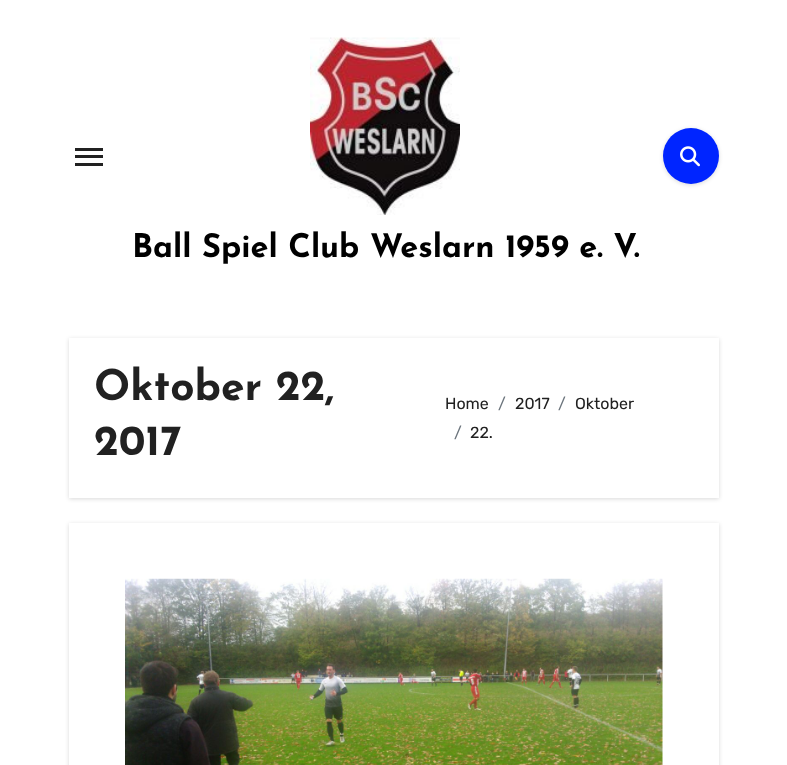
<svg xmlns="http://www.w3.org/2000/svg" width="787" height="765">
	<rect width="100%" height="100%" fill="#FFFFFF" />
	<rect x="75" y="148" width="28" height="3" fill="#212121" />
	<rect x="75" y="155" width="28" height="3" fill="#212121" />
	<rect x="75" y="163" width="28" height="3" fill="#212121" />
	<rect x="663" y="129" width="56" height="56" rx="28" fill="#000000" fill-opacity="0.15" filter="blur(2px)" />
	<circle cx="691" cy="156" r="28" fill="#0025FF" />
	<image x="680" y="146" width="20" height="21" href="assets/img1.png" />
	<image x="310" y="37" width="150" height="178" href="assets/img2.png" />
	<text x="132" y="257" font-family="Josefin Sans" font-size="32.5" font-weight="700" fill="#000000">Ball Spiel Club Weslarn 1959 e. V.</text>
	<rect x="69" y="339" width="650" height="160" fill="#000000" fill-opacity="0.15" filter="blur(2px)" />
	<rect x="69" y="338" width="650" height="160" fill="#FFFFFF" />
	<g font-family="Josefin Sans" font-size="42.5" font-weight="700" fill="#212121">
		<text x="94" y="400">Oktober 22,</text>
		<text x="94" y="455">2017</text>
	</g>
	<text x="445" y="409" font-family="Rubik" font-size="16" font-weight="300" fill="#212121">Home</text>
	<text x="498" y="409" font-family="Rubik" font-size="16" font-weight="300" fill="#6C757D">/</text>
	<text x="515" y="409" font-family="Rubik" font-size="16" font-weight="300" fill="#212121">2017</text>
	<text x="558" y="409" font-family="Rubik" font-size="16" font-weight="300" fill="#6C757D">/</text>
	<text x="575" y="409" font-family="Rubik" font-size="16" font-weight="300" fill="#212121">Oktober</text>
	<text x="454" y="438" font-family="Rubik" font-size="16" font-weight="300" fill="#6C757D">/</text>
	<text x="470" y="438" font-family="Rubik" font-size="16" font-weight="300" fill="#212121">22.</text>
	<rect x="69" y="524" width="650" height="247" fill="#000000" fill-opacity="0.15" filter="blur(2px)" />
	<rect x="69" y="523" width="650" height="242" fill="#FFFFFF" />
	<image x="125" y="578" width="538" height="187" href="assets/img3.png" />
</svg>
